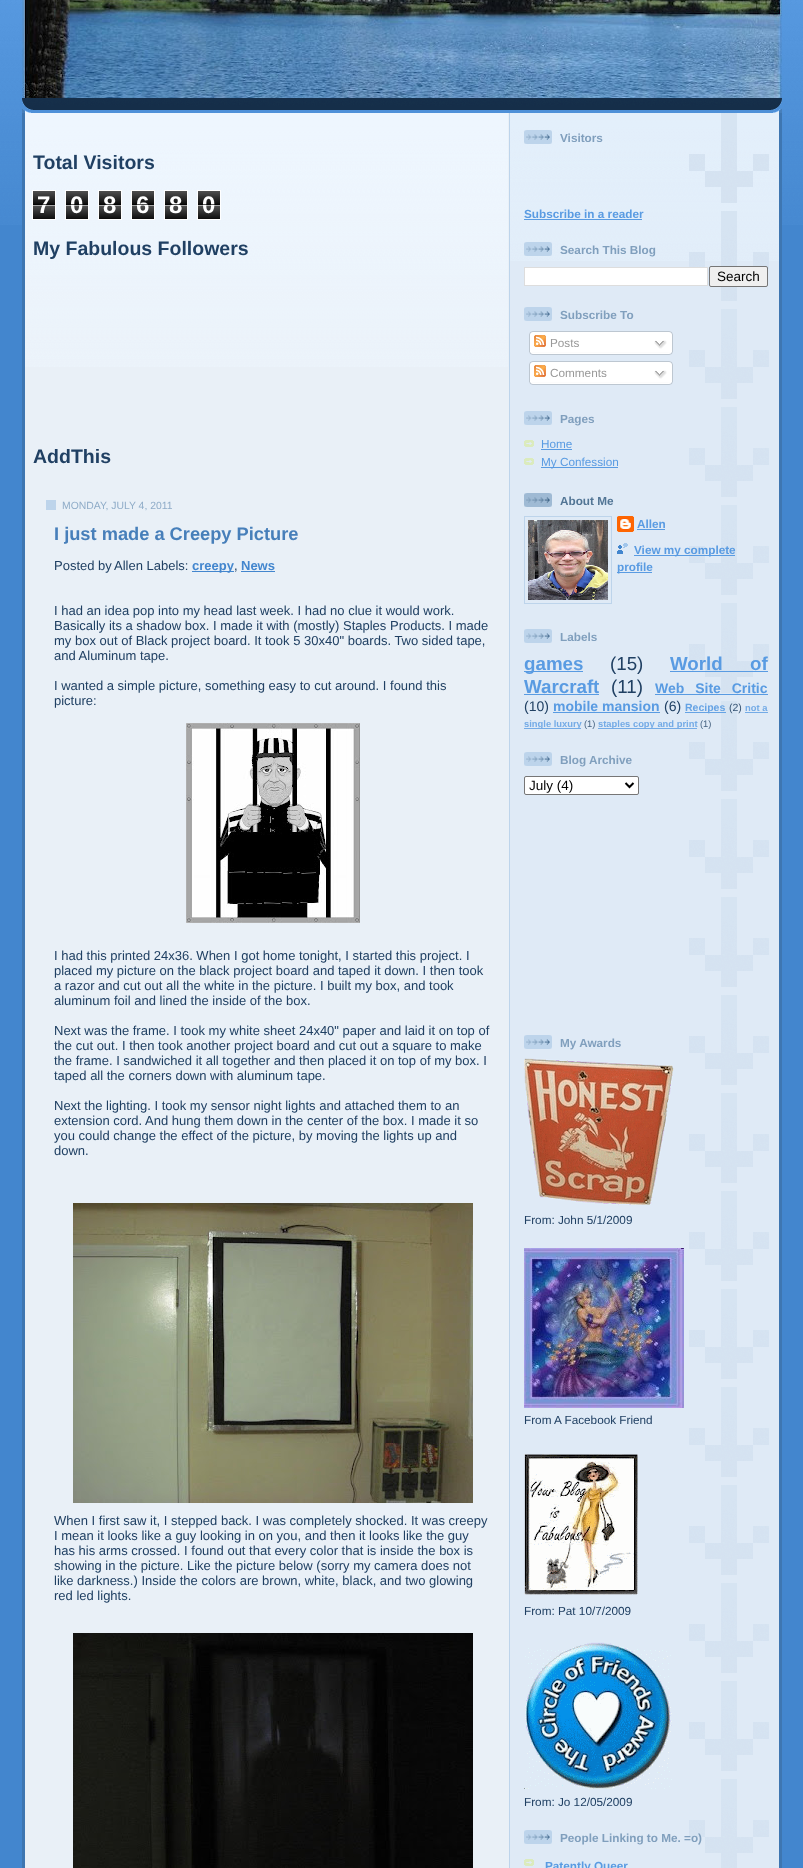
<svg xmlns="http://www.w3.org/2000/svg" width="803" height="1868">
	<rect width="100%" height="100%" fill="#4386CE" />
	<image x="0" y="0" width="803" height="225" href="assets/img1.png" />
	<image x="22" y="98" width="760" height="15" href="assets/img2.png" />
	<image x="22" y="0" width="760" height="98" href="assets/img3.png" />
	<image x="22" y="113" width="760" height="1755" href="assets/img4.png" />
	<image x="25" y="113" width="483" height="254" href="assets/img5.png" />
	<text x="33" y="169" font-family="Liberation Sans" font-size="19.5" font-weight="700" fill="#204063">Total Visitors</text>
	<image x="33" y="191" width="22" height="28" href="assets/img6.png" />
	<rect x="32.5" y="190.5" width="23" height="29" fill="none" stroke="#FFFFFF" />
	<text x="37" y="213" font-family="Liberation Sans" font-size="24" font-weight="700" fill="#FFFFFF">7</text>
	<rect x="33" y="204" width="22" height="1" fill="#000000" fill-opacity="0.65" />
	<rect x="33" y="205" width="22" height="1" fill="#FFFFFF" fill-opacity="0.65" />
	<image x="66" y="191" width="22" height="28" href="assets/img6.png" />
	<rect x="65.5" y="190.5" width="23" height="29" fill="none" stroke="#FFFFFF" />
	<text x="70" y="213" font-family="Liberation Sans" font-size="24" font-weight="700" fill="#FFFFFF">0</text>
	<rect x="66" y="204" width="22" height="1" fill="#000000" fill-opacity="0.65" />
	<rect x="66" y="205" width="22" height="1" fill="#FFFFFF" fill-opacity="0.65" />
	<image x="99" y="191" width="22" height="28" href="assets/img6.png" />
	<rect x="98.5" y="190.5" width="23" height="29" fill="none" stroke="#FFFFFF" />
	<text x="103" y="213" font-family="Liberation Sans" font-size="24" font-weight="700" fill="#FFFFFF">8</text>
	<rect x="99" y="204" width="22" height="1" fill="#000000" fill-opacity="0.65" />
	<rect x="99" y="205" width="22" height="1" fill="#FFFFFF" fill-opacity="0.65" />
	<image x="132" y="191" width="22" height="28" href="assets/img6.png" />
	<rect x="131.5" y="190.5" width="23" height="29" fill="none" stroke="#FFFFFF" />
	<text x="136" y="213" font-family="Liberation Sans" font-size="24" font-weight="700" fill="#FFFFFF">6</text>
	<rect x="132" y="204" width="22" height="1" fill="#000000" fill-opacity="0.65" />
	<rect x="132" y="205" width="22" height="1" fill="#FFFFFF" fill-opacity="0.65" />
	<image x="165" y="191" width="22" height="28" href="assets/img6.png" />
	<rect x="164.5" y="190.5" width="23" height="29" fill="none" stroke="#FFFFFF" />
	<text x="169" y="213" font-family="Liberation Sans" font-size="24" font-weight="700" fill="#FFFFFF">8</text>
	<rect x="165" y="204" width="22" height="1" fill="#000000" fill-opacity="0.65" />
	<rect x="165" y="205" width="22" height="1" fill="#FFFFFF" fill-opacity="0.65" />
	<image x="198" y="191" width="22" height="28" href="assets/img6.png" />
	<rect x="197.5" y="190.5" width="23" height="29" fill="none" stroke="#FFFFFF" />
	<text x="202" y="213" font-family="Liberation Sans" font-size="24" font-weight="700" fill="#FFFFFF">0</text>
	<rect x="198" y="204" width="22" height="1" fill="#000000" fill-opacity="0.65" />
	<rect x="198" y="205" width="22" height="1" fill="#FFFFFF" fill-opacity="0.65" />
	<g font-family="Liberation Sans" font-size="19.5" font-weight="700" fill="#204063">
		<text x="33" y="255">My Fabulous Followers</text>
		<text x="33" y="463">AddThis</text>
	</g>
	<rect x="46" y="500" width="10" height="10" fill="#BDD4EB" />
	<text x="62" y="509" font-family="Liberation Sans" font-size="10.4" fill="#8FACC8">MONDAY, JULY 4, 2011</text>
	<text x="54" y="540" font-family="Liberation Sans" font-size="18.25" font-weight="700" fill="#477FBA">I just made a Creepy Picture</text>
	<g font-family="Liberation Sans" font-size="13" fill="#204063">
		<text x="54" y="570">Posted by</text>
		<text x="114" y="570">Allen Labels:</text>
	</g>
	<rect x="192" y="571" width="42" height="1" fill="#4386CE" />
	<text x="192" y="570" font-family="Liberation Sans" font-size="13" font-weight="700" fill="#4386CE">creepy</text>
	<text x="234" y="570" font-family="Liberation Sans" font-size="13" fill="#204063">,</text>
	<rect x="241" y="571" width="34" height="1" fill="#4386CE" />
	<text x="241" y="570" font-family="Liberation Sans" font-size="13" font-weight="700" fill="#4386CE">News</text>
	<g font-family="Liberation Sans" font-size="13" fill="#204063">
		<text x="54" y="615">I had an idea pop into my head last week. I had no clue it would work.</text>
		<text x="54" y="630">Basically its a shadow box. I made it with (mostly) Staples Products. I made</text>
		<text x="54" y="645">my box out of Black project board. It took 5 30x40" boards. Two sided tape,</text>
		<text x="54" y="660">and Aluminum tape.</text>
		<text x="54" y="690">I wanted a simple picture, something easy to cut around. I found this</text>
		<text x="54" y="705">picture:</text>
	</g>
	<image x="186" y="723" width="174" height="200" href="assets/img7.png" />
	<g font-family="Liberation Sans" font-size="13" fill="#204063">
		<text x="54" y="960">I had this printed 24x36. When I got home tonight, I started this project. I</text>
		<text x="54" y="975">placed my picture on the black project board and taped it down. I then took</text>
		<text x="54" y="990">a razor and cut out all the white in the picture. I built my box, and took</text>
		<text x="54" y="1005">aluminum foil and lined the inside of the box.</text>
		<text x="54" y="1035">Next was the frame. I took my white sheet 24x40" paper and laid it on top of</text>
		<text x="54" y="1050">the cut out. I then took another project board and cut out a square to make</text>
		<text x="54" y="1065">the frame. I sandwiched it all together and then placed it on top of my box. I</text>
		<text x="54" y="1080">taped all the corners down with aluminum tape.</text>
		<text x="54" y="1110">Next the lighting. I took my sensor night lights and attached them to an</text>
		<text x="54" y="1125">extension cord. And hung them down in the center of the box. I made it so</text>
		<text x="54" y="1140">you could change the effect of the picture, by moving the lights up and</text>
		<text x="54" y="1155">down.</text>
	</g>
	<image x="73" y="1203" width="400" height="300" href="assets/img8.png" />
	<g font-family="Liberation Sans" font-size="13" fill="#204063">
		<text x="54" y="1525">When I first saw it, I stepped back. I was completely shocked. It was creepy</text>
		<text x="54" y="1540">I mean it looks like a guy looking in on you, and then it looks like the guy</text>
		<text x="54" y="1555">has his arms crossed. I found out that every color that is inside the box is</text>
		<text x="54" y="1570">showing in the picture. Like the picture below (sorry my camera does not</text>
		<text x="54" y="1585">like darkness.) Inside the colors are brown, white, black, and two glowing</text>
		<text x="54" y="1600">red led lights.</text>
	</g>
	<image x="73" y="1633" width="400" height="235" href="assets/img9.png" />
	<image x="510" y="113" width="269" height="148" href="assets/img10.png" />
	<image x="689" y="113" width="80" height="1755" href="assets/img11.png" />
	<image x="524" y="130" width="28" height="14" href="assets/img12.png" />
	<text x="560" y="142" font-family="Liberation Sans" font-size="11.75" font-weight="700" fill="#809FBD">Visitors</text>
	<text x="524" y="218" font-family="Liberation Sans" font-size="11.75" font-weight="700" fill="#599BE2">Subscribe in a reader</text>
	<rect x="524" y="219" width="118" height="1" fill="#599BE2" />
	<image x="524" y="242" width="28" height="14" href="assets/img13.png" />
	<text x="560" y="254" font-family="Liberation Sans" font-size="11.75" font-weight="700" fill="#809FBD">Search This Blog</text>
	<rect x="524.5" y="267.5" width="183" height="18" fill="#FFFFFF" stroke="#DDDDDD" />
	<rect x="709.5" y="266.5" width="58" height="20" rx="1.5" fill="#EFEFEF" stroke="#767676" />
	<text x="717" y="281" font-family="Liberation Sans" font-size="13.5" fill="#000000">Search</text>
	<image x="524" y="307" width="28" height="14" href="assets/img14.png" />
	<text x="560" y="319" font-family="Liberation Sans" font-size="11.75" font-weight="700" fill="#809FBD">Subscribe To</text>
	<image x="529" y="331" width="144" height="21" href="assets/img15.png" />
	<image x="534" y="335" width="12" height="12" href="assets/img16.png" />
	<text x="550" y="347" font-family="Liberation Sans" font-size="11.75" fill="#999999">Posts</text>
	<image x="654" y="340" width="13" height="9" href="assets/img17.png" />
	<image x="529" y="352" width="144" height="3" href="assets/img18.png" />
	<image x="529" y="361" width="144" height="21" href="assets/img15.png" />
	<image x="534" y="365" width="12" height="12" href="assets/img16.png" />
	<text x="550" y="377" font-family="Liberation Sans" font-size="11.75" fill="#999999">Comments</text>
	<image x="654" y="370" width="13" height="9" href="assets/img17.png" />
	<image x="529" y="382" width="144" height="3" href="assets/img18.png" />
	<image x="524" y="411" width="28" height="14" href="assets/img14.png" />
	<text x="560" y="423" font-family="Liberation Sans" font-size="11.75" font-weight="700" fill="#809FBD">Pages</text>
	<image x="524" y="440" width="10" height="7" href="assets/img19.png" />
	<text x="541" y="448" font-family="Liberation Sans" font-size="11.75" fill="#599BE2">Home</text>
	<rect x="541" y="449" width="31" height="1" fill="#599BE2" />
	<image x="524" y="458" width="10" height="7" href="assets/img19.png" />
	<rect x="541" y="467" width="77" height="1" fill="#599BE2" />
	<text x="541" y="466" font-family="Liberation Sans" font-size="11.75" fill="#599BE2">My Confession</text>
	<image x="524" y="493" width="28" height="14" href="assets/img20.png" />
	<text x="560" y="505" font-family="Liberation Sans" font-size="11.75" font-weight="700" fill="#527595">About Me</text>
	<rect x="524.5" y="516.5" width="87" height="87" fill="none" stroke="#BDD4EB" />
	<image x="528" y="520" width="80" height="80" href="assets/img21.png" />
	<image x="617" y="516" width="17" height="16" href="assets/img22.png" />
	<text x="637" y="528" font-family="Liberation Sans" font-size="11.75" font-weight="700" fill="#599BE2">Allen</text>
	<rect x="637" y="529" width="28" height="1" fill="#599BE2" />
	<image x="617" y="543" width="11" height="11" href="assets/img23.png" />
	<rect x="634" y="555" width="101" height="1" fill="#599BE2" />
	<text x="634" y="554" font-family="Liberation Sans" font-size="11.75" font-weight="700" fill="#599BE2">View my complete</text>
	<rect x="617" y="572" width="35" height="1" fill="#599BE2" />
	<text x="617" y="571" font-family="Liberation Sans" font-size="11.75" font-weight="700" fill="#599BE2">profile</text>
	<image x="524" y="629" width="28" height="14" href="assets/img14.png" />
	<text x="560" y="641" font-family="Liberation Sans" font-size="11.75" font-weight="700" fill="#809FBD">Labels</text>
	<rect x="524" y="671" width="59" height="1" fill="#599BE2" />
	<text x="524" y="670" font-family="Liberation Sans" font-size="18.75" font-weight="700" fill="#599BE2">games</text>
	<text x="610" y="670" font-family="Liberation Sans" font-size="18.75" fill="#204063">(15)</text>
	<text x="670" y="670" word-spacing="22" font-family="Liberation Sans" font-size="18.75" font-weight="700" fill="#599BE2">World of</text>
	<rect x="670" y="671" width="98" height="1" fill="#599BE2" />
	<text x="524" y="693" font-family="Liberation Sans" font-size="18.75" font-weight="700" fill="#599BE2">Warcraft</text>
	<rect x="524" y="694" width="75" height="1" fill="#599BE2" />
	<text x="611" y="693" font-family="Liberation Sans" font-size="18.75" fill="#204063">(11)</text>
	<text x="655" y="693" word-spacing="7" font-family="Liberation Sans" font-size="14" font-weight="700" fill="#599BE2">Web Site Critic</text>
	<rect x="655" y="694" width="113" height="1" fill="#599BE2" />
	<text x="524" y="711" font-family="Liberation Sans" font-size="14" fill="#204063">(10)</text>
	<text x="553" y="711" font-family="Liberation Sans" font-size="14" font-weight="700" fill="#599BE2">mobile mansion</text>
	<rect x="553" y="712" width="107" height="1" fill="#599BE2" />
	<text x="664" y="711" font-family="Liberation Sans" font-size="14" fill="#204063">(6)</text>
	<rect x="685" y="712" width="41" height="1" fill="#599BE2" fill-opacity="0.9" />
	<text x="685" y="711" font-family="Liberation Sans" font-size="10.5" font-weight="700" fill="#66A3E4">Recipes</text>
	<text x="729" y="711" font-family="Liberation Sans" font-size="10.5" fill="#335171">(2)</text>
	<text x="745" y="711" font-family="Liberation Sans" font-size="9.4" font-weight="700" fill="#74ABE6">not a</text>
	<rect x="745" y="712" width="23" height="1" fill="#74ABE6" />
	<rect x="524" y="728" width="57" height="1" fill="#74ABE6" />
	<text x="524" y="727" font-family="Liberation Sans" font-size="9.4" font-weight="700" fill="#74ABE6">single luxury</text>
	<text x="584" y="727" font-family="Liberation Sans" font-size="9.4" fill="#466280">(1)</text>
	<rect x="598" y="728" width="99" height="1" fill="#74ABE6" />
	<text x="598" y="727" font-family="Liberation Sans" font-size="9.4" font-weight="700" fill="#74ABE6">staples copy and print</text>
	<text x="700" y="727" font-family="Liberation Sans" font-size="9.4" fill="#466280">(1)</text>
	<image x="524" y="752" width="28" height="14" href="assets/img14.png" />
	<text x="560" y="764" font-family="Liberation Sans" font-size="11.75" font-weight="700" fill="#809FBD">Blog Archive</text>
	<rect x="524.5" y="776.5" width="114" height="18" rx="1.5" fill="#FFFFFF" stroke="#767676" />
	<path d="M625.5 783L629.5 787L633.5 783" fill="none" stroke="#000000" stroke-width="2" />
	<text x="529" y="790" font-family="Liberation Sans" font-size="13.5" fill="#000000">July (4)</text>
	<image x="524" y="1035" width="28" height="14" href="assets/img14.png" />
	<text x="560" y="1047" font-family="Liberation Sans" font-size="11.75" font-weight="700" fill="#809FBD">My Awards</text>
	<image x="524" y="1058" width="150" height="147" href="assets/img24.png" />
	<text x="524" y="1224" font-family="Liberation Sans" font-size="11.75" fill="#204063">From: John 5/1/2009</text>
	<image x="524" y="1248" width="160" height="160" href="assets/img25.png" />
	<text x="524" y="1424" font-family="Liberation Sans" font-size="11.75" fill="#204063">From A Facebook Friend</text>
	<image x="524" y="1454" width="114" height="141" href="assets/img26.png" />
	<text x="524" y="1615" font-family="Liberation Sans" font-size="11.75" fill="#204063">From: Pat 10/7/2009</text>
	<image x="524" y="1642" width="148" height="147" href="assets/img27.png" />
	<text x="524" y="1806" font-family="Liberation Sans" font-size="11.75" fill="#204063">From: Jo 12/05/2009</text>
	<image x="524" y="1830" width="28" height="14" href="assets/img14.png" />
	<text x="560" y="1842" font-family="Liberation Sans" font-size="11.75" font-weight="700" fill="#809FBD">People Linking to Me. =o)</text>
	<image x="524" y="1859" width="10" height="7" href="assets/img19.png" />
	<text x="545" y="1870" font-family="Liberation Sans" font-size="11.75" font-weight="700" fill="#599BE2">Patently Queer</text>
</svg>
